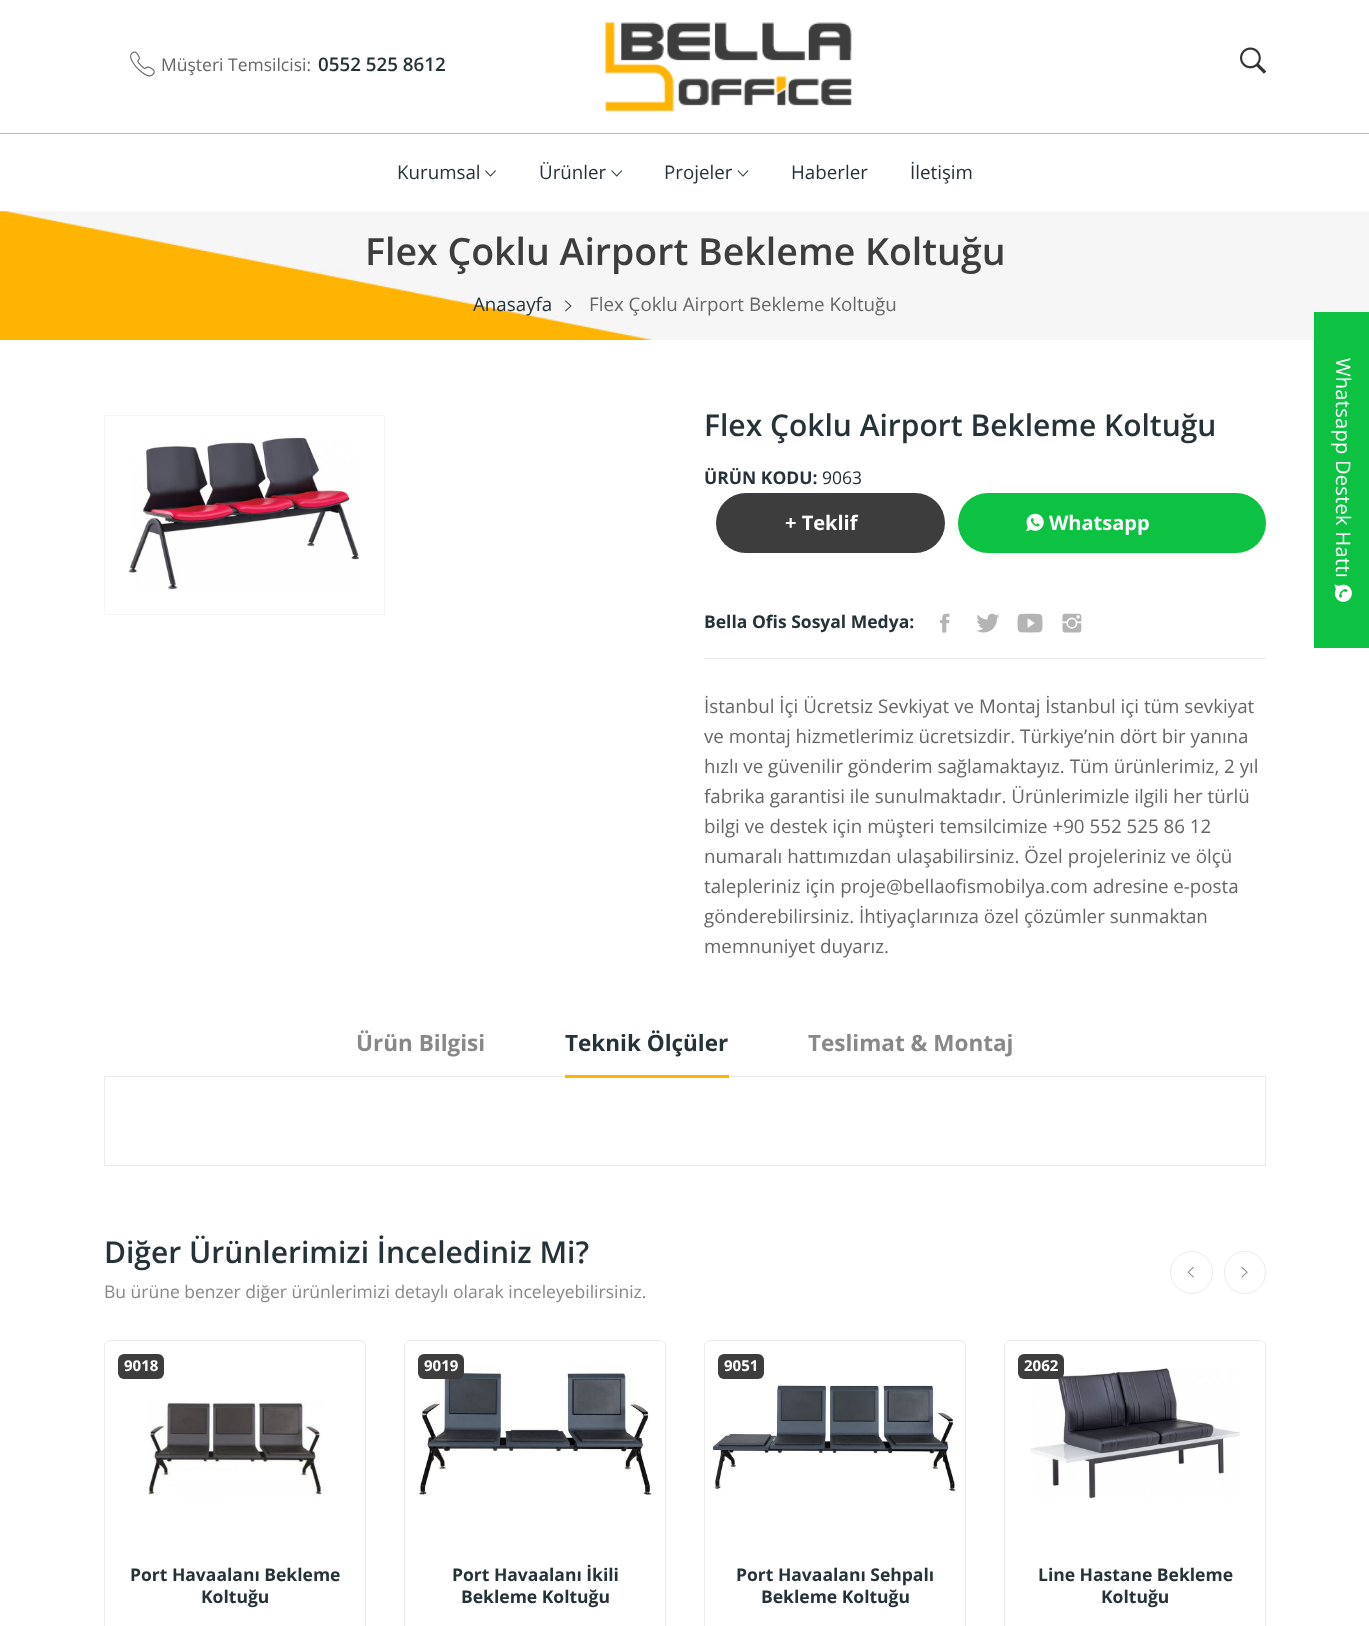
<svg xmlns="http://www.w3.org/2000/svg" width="1369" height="1626">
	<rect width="100%" height="100%" fill="#FFFFFF" />
	<rect x="0" y="133" width="1369" height="1" fill="#FFB404" />
	<image x="130" y="51" width="25" height="26" href="assets/img1.png" />
	<text x="161" y="71" font-family="Open Sans" font-size="17.5" fill="#666666">Müşteri Temsilcisi:</text>
	<text x="318" y="71" font-family="Open Sans" font-size="18.75" font-weight="600" fill="#253237">0552 525 8612</text>
	<image x="604" y="22" width="248" height="90" href="assets/img2.png" />
	<image x="1240" y="47" width="27" height="27" href="assets/img3.png" />
	<text x="397" y="179" font-family="Open Sans" font-size="18.75" fill="#253237">Kurumsal</text>
	<image x="485" y="170" width="11" height="7" href="assets/img4.png" />
	<text x="539" y="179" font-family="Open Sans" font-size="18.75" fill="#253237">Ürünler</text>
	<image x="611" y="170" width="12" height="7" href="assets/img5.png" />
	<text x="664" y="179" font-family="Open Sans" font-size="18.75" fill="#253237">Projeler</text>
	<image x="737" y="170" width="12" height="7" href="assets/img6.png" />
	<g font-family="Open Sans" font-size="18.75" fill="#253237">
		<text x="791" y="179">Haberler</text>
		<text x="910" y="179">İletişim</text>
	</g>
	<image x="0" y="211" width="1369" height="129" href="assets/img7.png" />
	<text x="365" y="265" font-family="Open Sans" font-size="37.5" font-weight="600" fill="#3D3D3D">Flex Çoklu Airport Bekleme Koltuğu</text>
	<text x="473" y="311" font-family="Open Sans" font-size="18.75" fill="#253237">Anasayfa</text>
	<image x="565" y="300" width="7" height="12" href="assets/img8.png" />
	<text x="589" y="311" font-family="Open Sans" font-size="18.75" fill="#666666">Flex Çoklu Airport Bekleme Koltuğu</text>
	<rect x="104.5" y="415.5" width="280" height="199" fill="none" stroke="#F6F6F6" />
	<image x="128" y="435" width="232" height="155" href="assets/img9.png" />
	<text x="704" y="436" font-family="Open Sans" font-size="30" font-weight="600" fill="#253237">Flex Çoklu Airport Bekleme Koltuğu</text>
	<text x="704" y="484" font-family="Open Sans" font-size="17.5" font-weight="700" fill="#253237">ÜRÜN KODU:</text>
	<text x="822" y="484" font-family="Open Sans" font-size="17.5" fill="#253237">9063</text>
	<rect x="716" y="493" width="229" height="60" rx="30" fill="#3D3D3D" />
	<text x="785" y="530" font-family="Open Sans" font-size="20" font-weight="700" fill="#FFFFFF">+ Teklif</text>
	<rect x="958" y="493" width="308" height="60" rx="30" fill="#0DC143" />
	<image x="1026" y="513" width="18" height="19" href="assets/img10.png" />
	<text x="1049" y="530" font-family="Open Sans" font-size="20" font-weight="700" fill="#FFFFFF">Whatsapp</text>
	<rect x="704" y="658" width="562" height="1" fill="#EBEBEB" />
	<text x="704" y="628" font-family="Open Sans" font-size="17.5" font-weight="700" fill="#253237">Bella Ofis Sosyal Medya:</text>
	<image x="940" y="613" width="10" height="20" href="assets/img11.png" />
	<image x="976" y="613" width="23" height="20" href="assets/img12.png" />
	<image x="1017" y="613" width="26" height="20" href="assets/img13.png" />
	<image x="1062" y="613" width="20" height="20" href="assets/img14.png" />
	<g font-family="Open Sans" font-size="18.75" fill="#666666">
		<text x="704" y="713">İstanbul İçi Ücretsiz Sevkiyat ve Montaj İstanbul içi tüm sevkiyat</text>
		<text x="704" y="743">ve montaj hizmetlerimiz ücretsizdir. Türkiye’nin dört bir yanına</text>
		<text x="704" y="773">hızlı ve güvenilir gönderim sağlamaktayız. Tüm ürünlerimiz, 2 yıl</text>
		<text x="704" y="803">fabrika garantisi ile sunulmaktadır. Ürünlerimizle ilgili her türlü</text>
		<text x="704" y="833">bilgi ve destek için müşteri temsilcimize +90 552 525 86 12</text>
		<text x="704" y="863">numaralı hattımızdan ulaşabilirsiniz. Özel projeleriniz ve ölçü</text>
		<text x="704" y="893">talepleriniz için proje@bellaofismobilya.com adresine e-posta</text>
		<text x="704" y="923">gönderebilirsiniz. İhtiyaçlarınıza özel çözümler sunmaktan</text>
		<text x="704" y="953">memnuniyet duyarız.</text>
	</g>
	<text x="356" y="1051" font-family="Open Sans" font-size="22.5" font-weight="700" fill="#888888">Ürün Bilgisi</text>
	<text x="565" y="1051" font-family="Open Sans" font-size="22.5" font-weight="700" fill="#253237">Teknik Ölçüler</text>
	<rect x="104.5" y="1076.5" width="1161" height="89" fill="none" stroke="#EBEBEB" />
	<rect x="565" y="1075" width="164" height="3" fill="#FFB403" />
	<text x="808" y="1051" font-family="Open Sans" font-size="22.5" font-weight="700" fill="#888888">Teslimat &amp; Montaj</text>
	<text x="104" y="1263" font-family="Open Sans" font-size="30" font-weight="600" fill="#253237">Diğer Ürünlerimizi İncelediniz Mi?</text>
	<text x="104" y="1298" font-family="Open Sans" font-size="17.5" fill="#888888">Bu ürüne benzer diğer ürünlerimizi detaylı olarak inceleyebilirsiniz.</text>
	<circle cx="1191.5" cy="1272.5" r="21" fill="none" stroke="#EBEBEB" />
	<image x="1187" y="1266" width="7" height="12" href="assets/img15.png" />
	<rect x="1224.5" y="1251.5" width="41" height="42" rx="20.5" fill="none" stroke="#EBEBEB" />
	<image x="1241" y="1266" width="7" height="12" href="assets/img16.png" />
	<rect x="104.5" y="1340.5" width="261" height="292" rx="5.5" fill="none" stroke="#EBEBEB" />
	<rect x="118" y="1354" width="46" height="25" rx="6" fill="#3D3D3D" />
	<text x="124" y="1371" font-family="Open Sans" font-size="15" font-weight="700" fill="#FFFFFF">9018</text>
	<image x="147" y="1400" width="177" height="97" href="assets/img17.png" />
	<g font-family="Open Sans" font-size="17.5" font-weight="700" fill="#253237">
		<text x="130" y="1581">Port Havaalanı Bekleme</text>
		<text x="201" y="1603">Koltuğu</text>
	</g>
	<rect x="404.5" y="1340.5" width="261" height="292" rx="5.5" fill="none" stroke="#EBEBEB" />
	<image x="419" y="1373" width="233" height="123" href="assets/img18.png" />
	<rect x="418" y="1354" width="46" height="25" rx="6" fill="#3D3D3D" />
	<text x="424" y="1371" font-family="Open Sans" font-size="15" font-weight="700" fill="#FFFFFF">9019</text>
	<g font-family="Open Sans" font-size="17.5" font-weight="700" fill="#253237">
		<text x="452" y="1581">Port Havaalanı İkili</text>
		<text x="461" y="1603">Bekleme Koltuğu</text>
	</g>
	<rect x="704.5" y="1340.5" width="261" height="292" rx="5.5" fill="none" stroke="#EBEBEB" />
	<rect x="718" y="1354" width="46" height="25" rx="6" fill="#3D3D3D" />
	<text x="724" y="1371" font-family="Open Sans" font-size="15" font-weight="700" fill="#FFFFFF">9051</text>
	<image x="712" y="1385" width="244" height="107" href="assets/img19.png" />
	<g font-family="Open Sans" font-size="17.5" font-weight="700" fill="#253237">
		<text x="736" y="1581">Port Havaalanı Sehpalı</text>
		<text x="761" y="1603">Bekleme Koltuğu</text>
	</g>
	<rect x="1004.5" y="1340.5" width="261" height="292" rx="5.5" fill="none" stroke="#EBEBEB" />
	<image x="1030" y="1367" width="210" height="132" href="assets/img20.png" />
	<rect x="1018" y="1354" width="46" height="25" rx="6" fill="#3D3D3D" />
	<text x="1024" y="1371" font-family="Open Sans" font-size="15" font-weight="700" fill="#FFFFFF">2062</text>
	<g font-family="Open Sans" font-size="17.5" font-weight="700" fill="#253237">
		<text x="1038" y="1581">Line Hastane Bekleme</text>
		<text x="1101" y="1603">Koltuğu</text>
	</g>
	<rect x="1314" y="312" width="55" height="336" fill="#0DC143" />
	<text x="1336" y="358" transform="rotate(90 1336 358)" font-family="Open Sans" font-size="20" letter-spacing="0.3" fill="#FFFFFF">Whatsapp Destek Hattı</text>
	<image x="1334" y="584" width="18" height="18" href="assets/img21.png" />
</svg>
